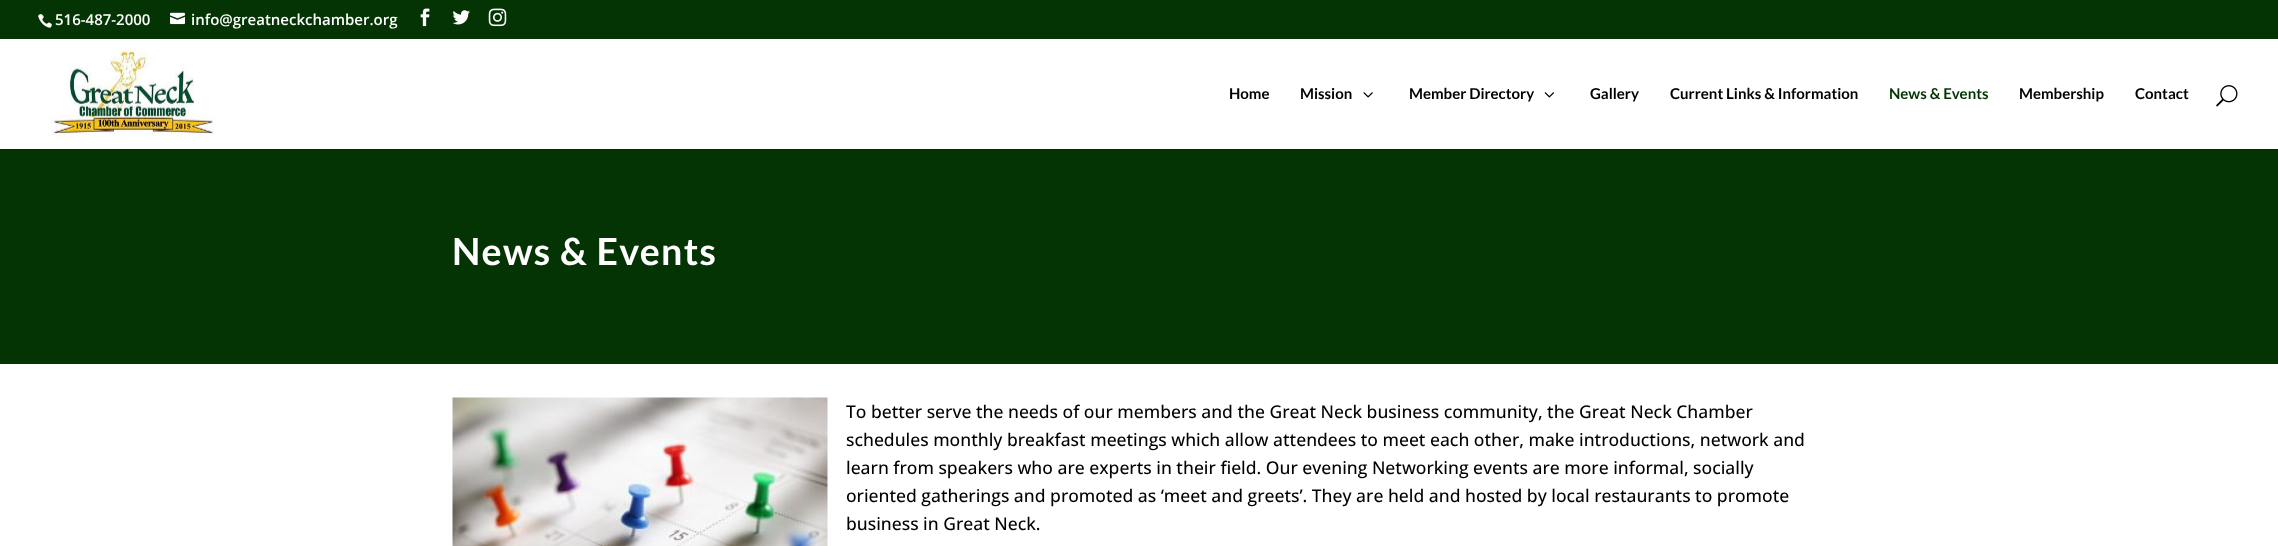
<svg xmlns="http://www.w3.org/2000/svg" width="2278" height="546">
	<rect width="100%" height="100%" fill="#FFFFFF" />
	<rect x="0" y="0" width="2278" height="39" fill="#043404" />
	<image x="38" y="14" width="14" height="14" href="assets/img1.png" />
	<text x="55" y="25" font-family="Open Sans" font-size="15" font-weight="600" fill="#FFFFFF">516-487-2000</text>
	<image x="170" y="12" width="15" height="13" href="assets/img2.png" />
	<text x="191" y="25" font-family="Open Sans" font-size="15" font-weight="600" fill="#FFFFFF">info@greatneckchamber.org</text>
	<image x="420" y="8" width="10" height="19" href="assets/img3.png" />
	<image x="452" y="10" width="18" height="15" href="assets/img4.png" />
	<image x="488" y="8" width="19" height="19" href="assets/img5.png" />
	<path d="M0 149V150H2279V40V149Z" fill="#042F04" />
	<image x="50" y="50" width="164" height="88" href="assets/img6.png" />
	<g font-family="Lato" font-size="15" font-weight="700" fill="#000000">
		<text x="1229" y="99">Home</text>
		<text x="1300" y="99">Mission</text>
	</g>
	<image x="1363" y="92" width="10" height="6" href="assets/img7.png" />
	<text x="1409" y="99" font-family="Lato" font-size="15" font-weight="700" fill="#000000">Member Directory</text>
	<image x="1544" y="92" width="10" height="6" href="assets/img8.png" />
	<g font-family="Lato" font-size="15" font-weight="700" fill="#000000">
		<text x="1590" y="99">Gallery</text>
		<text x="1670" y="99">Current Links &amp; Information</text>
	</g>
	<text x="1889" y="99" font-family="Lato" font-size="15" font-weight="700" fill="#043404">News &amp; Events</text>
	<g font-family="Lato" font-size="15" font-weight="700" fill="#000000">
		<text x="2019" y="99">Membership</text>
		<text x="2135" y="99">Contact</text>
	</g>
	<image x="2216" y="85" width="22" height="22" href="assets/img9.png" />
	<rect x="0" y="150" width="2278" height="214" fill="#043404" />
	<text x="452" y="265" font-family="Lato" font-size="37.5" font-weight="700" letter-spacing="1.25" fill="#FFFFFF">News &amp; Events</text>
	<image x="452" y="397" width="376" height="149" href="assets/img10.png" />
	<g font-family="Open Sans" font-size="17.5" font-weight="500" fill="#000000">
		<text x="846" y="418">To better serve the needs of our members and the Great Neck business community, the Great Neck Chamber</text>
		<text x="846" y="446">schedules monthly breakfast meetings which allow attendees to meet each other, make introductions, network and</text>
		<text x="846" y="474">learn from speakers who are experts in their field. Our evening Networking events are more informal, socially</text>
		<text x="846" y="502">oriented gatherings and promoted as ‘meet and greets’. They are held and hosted by local restaurants to promote</text>
		<text x="846" y="530">business in Great Neck.</text>
	</g>
</svg>
